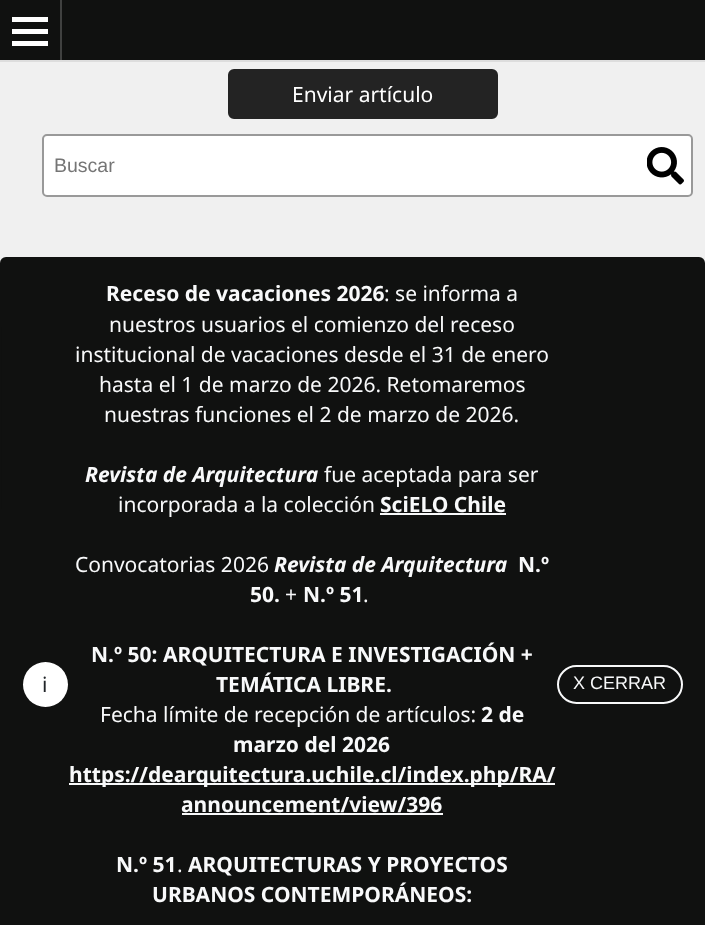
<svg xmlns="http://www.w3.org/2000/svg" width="705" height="925">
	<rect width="100%" height="100%" fill="#101110" />
	<rect x="0" y="60" width="705" height="2" fill="#DDDDDD" />
	<rect x="60" y="0" width="2" height="60" fill="#404140" />
	<rect x="12" y="41" width="36" height="5" fill="#FFFFFF" />
	<rect x="12" y="17" width="36" height="5" fill="#FFFFFF" />
	<rect x="12" y="29" width="36" height="5" fill="#FFFFFF" />
	<rect x="0" y="62" width="705" height="201" fill="#F0F0F0" />
	<rect x="229" y="70" width="268" height="48" rx="5" fill="#232323" stroke="#232323" stroke-width="2" />
	<text x="292" y="102" font-family="Noto Sans" font-size="21" fill="#FFFFFF">Enviar artículo</text>
	<rect x="42" y="134" width="651" height="63" rx="5" fill="#FFFFFF" />
	<rect x="43" y="135" width="649" height="61" rx="4" fill="none" stroke="#000000" stroke-opacity="0.4" stroke-width="2" />
	<text x="54" y="172" font-family="Liberation Sans" font-size="19.5" fill="#757575">Buscar</text>
	<image x="647" y="147" width="37" height="38" href="assets/img1.png" />
	<rect x="1" y="258" width="703" height="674" rx="5" fill="#101110" stroke="#101110" stroke-width="2" />
	<circle cx="45.5" cy="684.5" r="22.5" fill="#FFFFFF" />
	<text x="42" y="692" font-family="Noto Sans" font-size="21" fill="#212529">i</text>
	<text x="106" y="301" font-family="Noto Sans" font-size="21" font-weight="700" fill="#F8F9FA">Receso de vacaciones 2026</text>
	<g font-family="Noto Sans" font-size="21" fill="#F8F9FA">
		<text x="384" y="301">: se informa a</text>
		<text x="109" y="332">nuestros usuarios el comienzo del receso</text>
		<text x="75" y="362">institucional de vacaciones desde el 31 de enero</text>
		<text x="99" y="392">hasta el 1 de marzo de 2026. Retomaremos</text>
		<text x="104" y="422">nuestras funciones el 2 de marzo de 2026.</text>
	</g>
	<text x="85" y="482" font-family="Noto Sans" font-size="21" font-weight="700" font-style="italic" fill="#F8F9FA">Revista de Arquitectura</text>
	<g font-family="Noto Sans" font-size="21" fill="#F8F9FA">
		<text x="324" y="482">fue aceptada para ser</text>
		<text x="118" y="512">incorporada a la colección</text>
	</g>
	<text x="380" y="512" font-family="Noto Sans" font-size="21" font-weight="700" fill="#F8F9FA">SciELO Chile</text>
	<rect x="380" y="513" width="126" height="2" fill="#F8F9FA" />
	<text x="75" y="572" font-family="Noto Sans" font-size="21" fill="#F8F9FA">Convocatorias 2026</text>
	<text x="274" y="572" font-family="Noto Sans" font-size="21" font-weight="700" font-style="italic" fill="#F8F9FA">Revista de Arquitectura</text>
	<g font-family="Noto Sans" font-size="21" font-weight="700" fill="#F8F9FA">
		<text x="518" y="572">N.º</text>
		<text x="250" y="602">50.</text>
	</g>
	<text x="285" y="602" font-family="Noto Sans" font-size="21" fill="#F8F9FA">+</text>
	<text x="303" y="602" font-family="Noto Sans" font-size="21" font-weight="700" fill="#F8F9FA">N.º 51</text>
	<text x="363" y="602" font-family="Noto Sans" font-size="21" fill="#F8F9FA">.</text>
	<g font-family="Noto Sans" font-size="21" font-weight="700" fill="#F8F9FA">
		<text x="91" y="662">N.º 50: ARQUITECTURA E INVESTIGACIÓN +</text>
		<text x="216" y="692">TEMÁTICA LIBRE.</text>
	</g>
	<text x="100" y="722" font-family="Noto Sans" font-size="21" fill="#F8F9FA">Fecha límite de recepción de artículos:</text>
	<g font-family="Noto Sans" font-size="21" font-weight="700" fill="#F8F9FA">
		<text x="481" y="722">2 de</text>
		<text x="233" y="752">marzo del 2026</text>
	</g>
	<rect x="69" y="783" width="486" height="2" fill="#F8F9FA" />
	<g font-family="Noto Sans" font-size="21" font-weight="700" fill="#F8F9FA">
		<text x="69" y="782">https://dearquitectura.uchile.cl/index.php/RA/</text>
		<text x="181" y="812">announcement/view/396</text>
	</g>
	<rect x="182" y="813" width="261" height="2" fill="#F8F9FA" />
	<text x="116" y="872" font-family="Noto Sans" font-size="21" font-weight="700" fill="#F8F9FA">N.º 51</text>
	<text x="177" y="872" font-family="Noto Sans" font-size="21" fill="#F8F9FA">.</text>
	<g font-family="Noto Sans" font-size="21" font-weight="700" fill="#F8F9FA">
		<text x="188" y="872">ARQUITECTURAS Y PROYECTOS</text>
		<text x="152" y="902">URBANOS CONTEMPORÁNEOS:</text>
	</g>
	<rect x="558" y="666" width="124" height="37" rx="18.5" fill="none" stroke="#F8F9FA" stroke-width="2" />
	<text x="573" y="689" font-family="Liberation Sans" font-size="18" fill="#F8F9FA">X CERRAR</text>
</svg>
